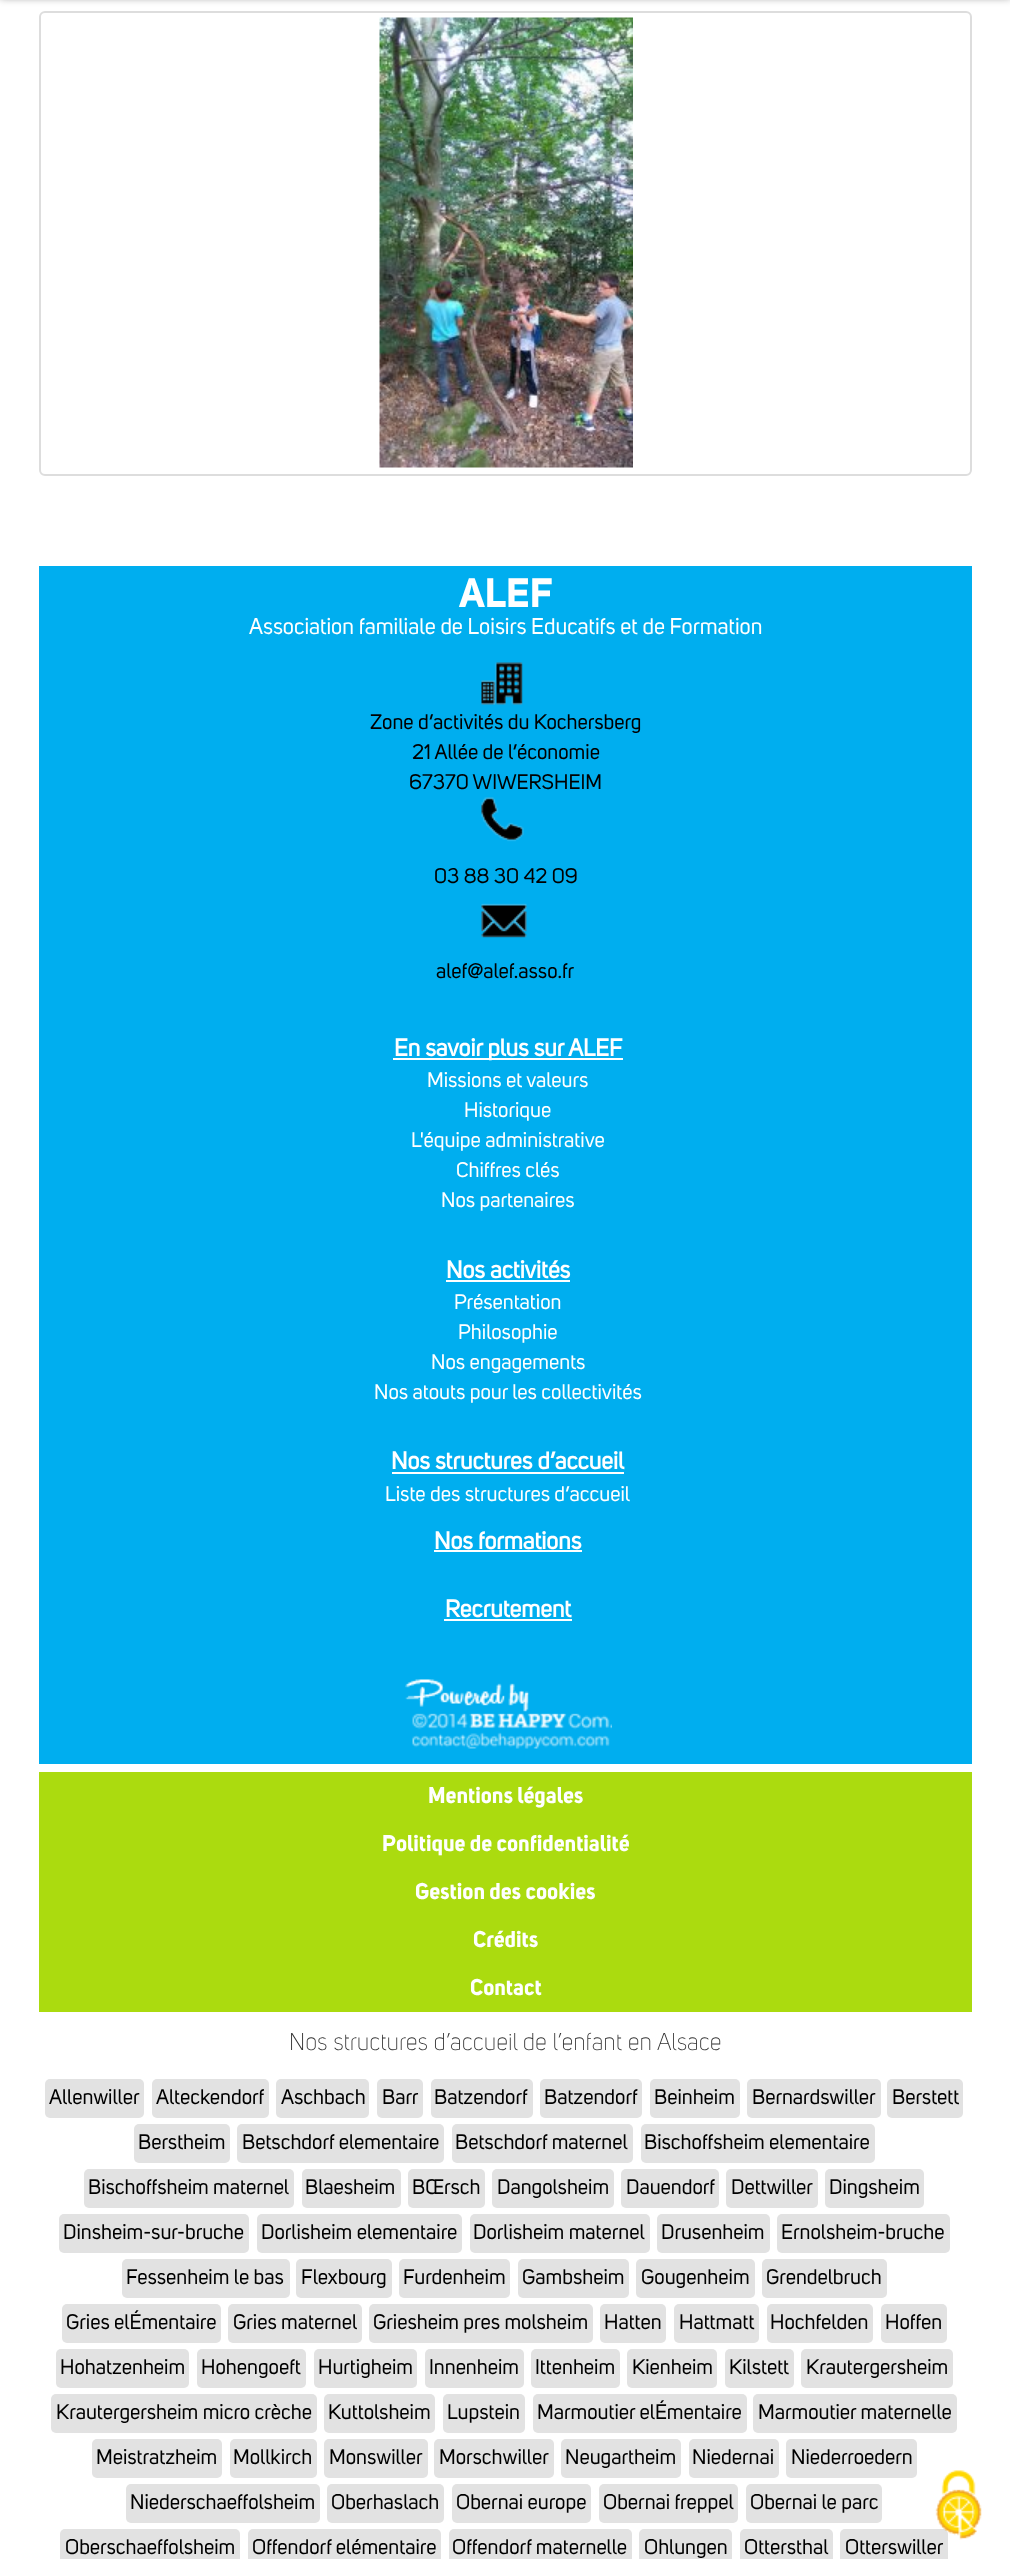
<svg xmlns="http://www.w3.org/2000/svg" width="1010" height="2559">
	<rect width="100%" height="100%" fill="#FFFFFF" />
	<rect x="40" y="12" width="931" height="463" rx="5" fill="none" stroke="#DDDDDD" stroke-width="2" />
	<rect x="0" y="-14" width="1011" height="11" fill="#000000" fill-opacity="0.5" filter="blur(4.5px)" />
	<image x="379" y="17" width="254" height="451" href="assets/img1.png" />
	<rect x="39" y="566" width="933" height="1198" fill="#00AEEF" />
	<text x="459" y="607" font-family="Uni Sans" font-size="40.5" font-weight="700" fill="#FFFFFF">ALEF</text>
	<text x="249" y="634" font-family="Uni Sans" font-size="22.5" fill="#FFFFFF">Association familiale de Loisirs Educatifs et de Formation</text>
	<image x="481" y="662" width="42" height="43" href="assets/img2.png" />
	<g font-family="Uni Sans" font-size="21" fill="#000000">
		<text x="370" y="729">Zone d’activités du Kochersberg</text>
		<text x="412" y="759">21 Allée de l’économie</text>
		<text x="409" y="789">67370 WIWERSHEIM</text>
	</g>
	<image x="481" y="797" width="43" height="45" href="assets/img3.png" />
	<text x="434" y="883" font-family="Uni Sans" font-size="21" fill="#000000">03 88 30 42 09</text>
	<image x="481" y="903" width="46" height="35" href="assets/img4.png" />
	<text x="436" y="978" font-family="Uni Sans" font-size="21" fill="#000000">alef@alef.asso.fr</text>
	<rect x="393" y="1058" width="230" height="2" fill="#FFFFFF" />
	<text x="394" y="1056" font-family="'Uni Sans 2'" font-size="24" font-weight="700" fill="#FFFFFF">En savoir plus sur ALEF</text>
	<g font-family="Uni Sans" font-size="21" fill="#FFFFFF">
		<text x="427" y="1087">Missions et valeurs</text>
		<text x="464" y="1117">Historique</text>
		<text x="411" y="1147">L'équipe administrative</text>
		<text x="456" y="1177">Chiffres clés</text>
		<text x="441" y="1207">Nos partenaires</text>
	</g>
	<text x="446" y="1278" font-family="'Uni Sans 2'" font-size="24" font-weight="700" fill="#FFFFFF">Nos activités</text>
	<rect x="446" y="1280" width="124" height="2" fill="#FFFFFF" />
	<g font-family="Uni Sans" font-size="21" fill="#FFFFFF">
		<text x="454" y="1309">Présentation</text>
		<text x="458" y="1339">Philosophie</text>
		<text x="431" y="1369">Nos engagements</text>
		<text x="374" y="1399">Nos atouts pour les collectivités</text>
	</g>
	<text x="391" y="1469" font-family="'Uni Sans 2'" font-size="24" font-weight="700" fill="#FFFFFF">Nos structures d’accueil</text>
	<rect x="392" y="1472" width="232" height="2" fill="#FFFFFF" />
	<text x="385" y="1501" font-family="Uni Sans" font-size="21" fill="#FFFFFF">Liste des structures d’accueil</text>
	<text x="434" y="1549" font-family="'Uni Sans 2'" font-size="24" font-weight="700" fill="#FFFFFF">Nos formations</text>
	<rect x="434" y="1550" width="148" height="2" fill="#FFFFFF" />
	<text x="445" y="1617" font-family="'Uni Sans 2'" font-size="24" font-weight="700" fill="#FFFFFF">Recrutement</text>
	<rect x="444" y="1619" width="128" height="2" fill="#FFFFFF" />
	<image x="405" y="1679" width="207" height="70" href="assets/img5.png" />
	<rect x="39" y="1772" width="933" height="240" fill="#ABDB0F" />
	<g font-family="Uni Sans" font-size="22.5" font-weight="700" fill="#FFFFFF">
		<text x="428" y="1803">Mentions légales</text>
		<text x="382" y="1851">Politique de confidentialité</text>
		<text x="415" y="1899">Gestion des cookies</text>
		<text x="473" y="1947">Crédits</text>
		<text x="470" y="1995">Contact</text>
	</g>
	<text x="289" y="2050" font-family="Uni Sans" font-size="24" font-weight="300" fill="#333333">Nos structures d’accueil de l’enfant en Alsace</text>
	<rect x="45" y="2079" width="99" height="39" rx="5" fill="#E2E2E2" />
	<text x="49" y="2104" font-family="Uni Sans" font-size="21" fill="#000000">Allenwiller</text>
	<rect x="152" y="2079" width="117" height="39" rx="5" fill="#E2E2E2" />
	<text x="156" y="2104" font-family="Uni Sans" font-size="21" fill="#000000">Alteckendorf</text>
	<rect x="276" y="2079" width="93" height="39" rx="5" fill="#E2E2E2" />
	<text x="281" y="2104" font-family="Uni Sans" font-size="21" fill="#000000">Aschbach</text>
	<rect x="377" y="2079" width="46" height="39" rx="5" fill="#E2E2E2" />
	<text x="382" y="2104" font-family="Uni Sans" font-size="21" fill="#000000">Barr</text>
	<rect x="431" y="2079" width="102" height="39" rx="5" fill="#E2E2E2" />
	<text x="434" y="2104" font-family="Uni Sans" font-size="21" fill="#000000">Batzendorf</text>
	<rect x="540" y="2079" width="102" height="39" rx="5" fill="#E2E2E2" />
	<text x="544" y="2104" font-family="Uni Sans" font-size="21" fill="#000000">Batzendorf</text>
	<rect x="650" y="2079" width="90" height="39" rx="5" fill="#E2E2E2" />
	<text x="654" y="2104" font-family="Uni Sans" font-size="21" fill="#000000">Beinheim</text>
	<rect x="747" y="2079" width="134" height="39" rx="5" fill="#E2E2E2" />
	<text x="752" y="2104" font-family="Uni Sans" font-size="21" fill="#000000">Bernardswiller</text>
	<rect x="887" y="2079" width="76" height="39" rx="5" fill="#E2E2E2" />
	<text x="892" y="2104" font-family="Uni Sans" font-size="21" fill="#000000">Berstett</text>
	<rect x="134" y="2124" width="96" height="39" rx="5" fill="#E2E2E2" />
	<text x="138" y="2149" font-family="Uni Sans" font-size="21" fill="#000000">Berstheim</text>
	<rect x="237" y="2124" width="207" height="39" rx="5" fill="#E2E2E2" />
	<text x="242" y="2149" font-family="Uni Sans" font-size="21" fill="#000000">Betschdorf elementaire</text>
	<rect x="452" y="2124" width="181" height="39" rx="5" fill="#E2E2E2" />
	<text x="455" y="2149" font-family="Uni Sans" font-size="21" fill="#000000">Betschdorf maternel</text>
	<rect x="641" y="2124" width="234" height="39" rx="5" fill="#E2E2E2" />
	<text x="644" y="2149" font-family="Uni Sans" font-size="21" fill="#000000">Bischoffsheim elementaire</text>
	<rect x="84" y="2169" width="210" height="39" rx="5" fill="#E2E2E2" />
	<text x="88" y="2194" font-family="Uni Sans" font-size="21" fill="#000000">Bischoffsheim maternel</text>
	<rect x="302" y="2169" width="99" height="39" rx="5" fill="#E2E2E2" />
	<text x="305" y="2194" font-family="Uni Sans" font-size="21" fill="#000000">Blaesheim</text>
	<rect x="408" y="2169" width="77" height="39" rx="5" fill="#E2E2E2" />
	<text x="412" y="2194" font-family="Uni Sans" font-size="21" fill="#000000">BŒrsch</text>
	<rect x="492" y="2169" width="122" height="39" rx="5" fill="#E2E2E2" />
	<text x="497" y="2194" font-family="Uni Sans" font-size="21" fill="#000000">Dangolsheim</text>
	<rect x="621" y="2169" width="98" height="39" rx="5" fill="#E2E2E2" />
	<text x="626" y="2194" font-family="Uni Sans" font-size="21" fill="#000000">Dauendorf</text>
	<rect x="726" y="2169" width="92" height="39" rx="5" fill="#E2E2E2" />
	<text x="731" y="2194" font-family="Uni Sans" font-size="21" fill="#000000">Dettwiller</text>
	<rect x="825" y="2169" width="99" height="39" rx="5" fill="#E2E2E2" />
	<text x="829" y="2194" font-family="Uni Sans" font-size="21" fill="#000000">Dingsheim</text>
	<rect x="59" y="2214" width="190" height="39" rx="5" fill="#E2E2E2" />
	<text x="63" y="2239" font-family="Uni Sans" font-size="21" fill="#000000">Dinsheim-sur-bruche</text>
	<rect x="257" y="2214" width="205" height="39" rx="5" fill="#E2E2E2" />
	<text x="261" y="2239" font-family="Uni Sans" font-size="21" fill="#000000">Dorlisheim elementaire</text>
	<rect x="470" y="2214" width="180" height="39" rx="5" fill="#E2E2E2" />
	<text x="473" y="2239" font-family="Uni Sans" font-size="21" fill="#000000">Dorlisheim maternel</text>
	<rect x="657" y="2214" width="113" height="39" rx="5" fill="#E2E2E2" />
	<text x="661" y="2239" font-family="Uni Sans" font-size="21" fill="#000000">Drusenheim</text>
	<rect x="777" y="2214" width="173" height="39" rx="5" fill="#E2E2E2" />
	<text x="781" y="2239" font-family="Uni Sans" font-size="21" fill="#000000">Ernolsheim-bruche</text>
	<rect x="122" y="2259" width="168" height="39" rx="5" fill="#E2E2E2" />
	<text x="126" y="2284" font-family="Uni Sans" font-size="21" fill="#000000">Fessenheim le bas</text>
	<rect x="296" y="2259" width="96" height="39" rx="5" fill="#E2E2E2" />
	<text x="301" y="2284" font-family="Uni Sans" font-size="21" fill="#000000">Flexbourg</text>
	<rect x="399" y="2259" width="111" height="39" rx="5" fill="#E2E2E2" />
	<text x="403" y="2284" font-family="Uni Sans" font-size="21" fill="#000000">Furdenheim</text>
	<rect x="518" y="2259" width="111" height="39" rx="5" fill="#E2E2E2" />
	<text x="522" y="2284" font-family="Uni Sans" font-size="21" fill="#000000">Gambsheim</text>
	<rect x="636" y="2259" width="119" height="39" rx="5" fill="#E2E2E2" />
	<text x="641" y="2284" font-family="Uni Sans" font-size="21" fill="#000000">Gougenheim</text>
	<rect x="762" y="2259" width="125" height="39" rx="5" fill="#E2E2E2" />
	<text x="766" y="2284" font-family="Uni Sans" font-size="21" fill="#000000">Grendelbruch</text>
	<rect x="62" y="2304" width="159" height="39" rx="5" fill="#E2E2E2" />
	<text x="66" y="2329" font-family="Uni Sans" font-size="21" fill="#000000">Gries elÉmentaire</text>
	<rect x="228" y="2304" width="134" height="39" rx="5" fill="#E2E2E2" />
	<text x="233" y="2329" font-family="Uni Sans" font-size="21" fill="#000000">Gries maternel</text>
	<rect x="369" y="2304" width="224" height="39" rx="5" fill="#E2E2E2" />
	<text x="373" y="2329" font-family="Uni Sans" font-size="21" fill="#000000">Griesheim pres molsheim</text>
	<rect x="600" y="2304" width="66" height="39" rx="5" fill="#E2E2E2" />
	<text x="604" y="2329" font-family="Uni Sans" font-size="21" fill="#000000">Hatten</text>
	<rect x="674" y="2304" width="85" height="39" rx="5" fill="#E2E2E2" />
	<text x="679" y="2329" font-family="Uni Sans" font-size="21" fill="#000000">Hattmatt</text>
	<rect x="767" y="2304" width="106" height="39" rx="5" fill="#E2E2E2" />
	<text x="770" y="2329" font-family="Uni Sans" font-size="21" fill="#000000">Hochfelden</text>
	<rect x="881" y="2304" width="66" height="39" rx="5" fill="#E2E2E2" />
	<text x="885" y="2329" font-family="Uni Sans" font-size="21" fill="#000000">Hoffen</text>
	<rect x="56" y="2349" width="133" height="39" rx="5" fill="#E2E2E2" />
	<text x="60" y="2374" font-family="Uni Sans" font-size="21" fill="#000000">Hohatzenheim</text>
	<rect x="197" y="2349" width="109" height="39" rx="5" fill="#E2E2E2" />
	<text x="201" y="2374" font-family="Uni Sans" font-size="21" fill="#000000">Hohengoeft</text>
	<rect x="314" y="2349" width="103" height="39" rx="5" fill="#E2E2E2" />
	<text x="318" y="2374" font-family="Uni Sans" font-size="21" fill="#000000">Hurtigheim</text>
	<rect x="425" y="2349" width="99" height="39" rx="5" fill="#E2E2E2" />
	<text x="429" y="2374" font-family="Uni Sans" font-size="21" fill="#000000">Innenheim</text>
	<rect x="531" y="2349" width="89" height="39" rx="5" fill="#E2E2E2" />
	<text x="535" y="2374" font-family="Uni Sans" font-size="21" fill="#000000">Ittenheim</text>
	<rect x="627" y="2349" width="90" height="39" rx="5" fill="#E2E2E2" />
	<text x="632" y="2374" font-family="Uni Sans" font-size="21" fill="#000000">Kienheim</text>
	<rect x="725" y="2349" width="69" height="39" rx="5" fill="#E2E2E2" />
	<text x="729" y="2374" font-family="Uni Sans" font-size="21" fill="#000000">Kilstett</text>
	<rect x="801" y="2349" width="152" height="39" rx="5" fill="#E2E2E2" />
	<text x="806" y="2374" font-family="Uni Sans" font-size="21" fill="#000000">Krautergersheim</text>
	<rect x="51" y="2394" width="266" height="39" rx="5" fill="#E2E2E2" />
	<text x="56" y="2419" font-family="Uni Sans" font-size="21" fill="#000000">Krautergersheim micro crèche</text>
	<rect x="324" y="2394" width="111" height="39" rx="5" fill="#E2E2E2" />
	<text x="328" y="2419" font-family="Uni Sans" font-size="21" fill="#000000">Kuttolsheim</text>
	<rect x="443" y="2394" width="82" height="39" rx="5" fill="#E2E2E2" />
	<text x="447" y="2419" font-family="Uni Sans" font-size="21" fill="#000000">Lupstein</text>
	<rect x="533" y="2394" width="214" height="39" rx="5" fill="#E2E2E2" />
	<text x="537" y="2419" font-family="Uni Sans" font-size="21" fill="#000000">Marmoutier elÉmentaire</text>
	<rect x="753" y="2394" width="204" height="39" rx="5" fill="#E2E2E2" />
	<text x="758" y="2419" font-family="Uni Sans" font-size="21" fill="#000000">Marmoutier maternelle</text>
	<rect x="92" y="2439" width="130" height="39" rx="5" fill="#E2E2E2" />
	<text x="96" y="2464" font-family="Uni Sans" font-size="21" fill="#000000">Meistratzheim</text>
	<rect x="230" y="2439" width="87" height="39" rx="5" fill="#E2E2E2" />
	<text x="233" y="2464" font-family="Uni Sans" font-size="21" fill="#000000">Mollkirch</text>
	<rect x="324" y="2439" width="104" height="39" rx="5" fill="#E2E2E2" />
	<text x="329" y="2464" font-family="Uni Sans" font-size="21" fill="#000000">Monswiller</text>
	<rect x="434" y="2439" width="120" height="39" rx="5" fill="#E2E2E2" />
	<text x="439" y="2464" font-family="Uni Sans" font-size="21" fill="#000000">Morschwiller</text>
	<rect x="561" y="2439" width="120" height="39" rx="5" fill="#E2E2E2" />
	<text x="565" y="2464" font-family="Uni Sans" font-size="21" fill="#000000">Neugartheim</text>
	<rect x="689" y="2439" width="90" height="39" rx="5" fill="#E2E2E2" />
	<text x="692" y="2464" font-family="Uni Sans" font-size="21" fill="#000000">Niedernai</text>
	<rect x="786" y="2439" width="131" height="39" rx="5" fill="#E2E2E2" />
	<text x="791" y="2464" font-family="Uni Sans" font-size="21" fill="#000000">Niederroedern</text>
	<rect x="126" y="2484" width="194" height="39" rx="5" fill="#E2E2E2" />
	<text x="130" y="2509" font-family="Uni Sans" font-size="21" fill="#000000">Niederschaeffolsheim</text>
	<rect x="327" y="2484" width="117" height="39" rx="5" fill="#E2E2E2" />
	<text x="331" y="2509" font-family="Uni Sans" font-size="21" fill="#000000">Oberhaslach</text>
	<rect x="452" y="2484" width="139" height="39" rx="5" fill="#E2E2E2" />
	<text x="456" y="2509" font-family="Uni Sans" font-size="21" fill="#000000">Obernai europe</text>
	<rect x="599" y="2484" width="139" height="39" rx="5" fill="#E2E2E2" />
	<text x="603" y="2509" font-family="Uni Sans" font-size="21" fill="#000000">Obernai freppel</text>
	<rect x="746" y="2484" width="136" height="39" rx="5" fill="#E2E2E2" />
	<text x="750" y="2509" font-family="Uni Sans" font-size="21" fill="#000000">Obernai le parc</text>
	<rect x="60" y="2529" width="180" height="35" rx="5" fill="#E2E2E2" />
	<text x="65" y="2554" font-family="Uni Sans" font-size="21" fill="#000000">Oberschaeffolsheim</text>
	<rect x="248" y="2529" width="193" height="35" rx="5" fill="#E2E2E2" />
	<text x="252" y="2554" font-family="Uni Sans" font-size="21" fill="#000000">Offendorf elémentaire</text>
	<rect x="449" y="2529" width="183" height="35" rx="5" fill="#E2E2E2" />
	<text x="452" y="2554" font-family="Uni Sans" font-size="21" fill="#000000">Offendorf maternelle</text>
	<rect x="639" y="2529" width="93" height="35" rx="5" fill="#E2E2E2" />
	<text x="644" y="2554" font-family="Uni Sans" font-size="21" fill="#000000">Ohlungen</text>
	<rect x="740" y="2529" width="93" height="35" rx="5" fill="#E2E2E2" />
	<text x="744" y="2554" font-family="Uni Sans" font-size="21" fill="#000000">Ottersthal</text>
	<rect x="840" y="2529" width="108" height="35" rx="5" fill="#E2E2E2" />
	<text x="845" y="2554" font-family="Uni Sans" font-size="21" fill="#000000">Otterswiller</text>
	<image x="935" y="2470" width="47" height="70" href="assets/img6.png" />
</svg>
